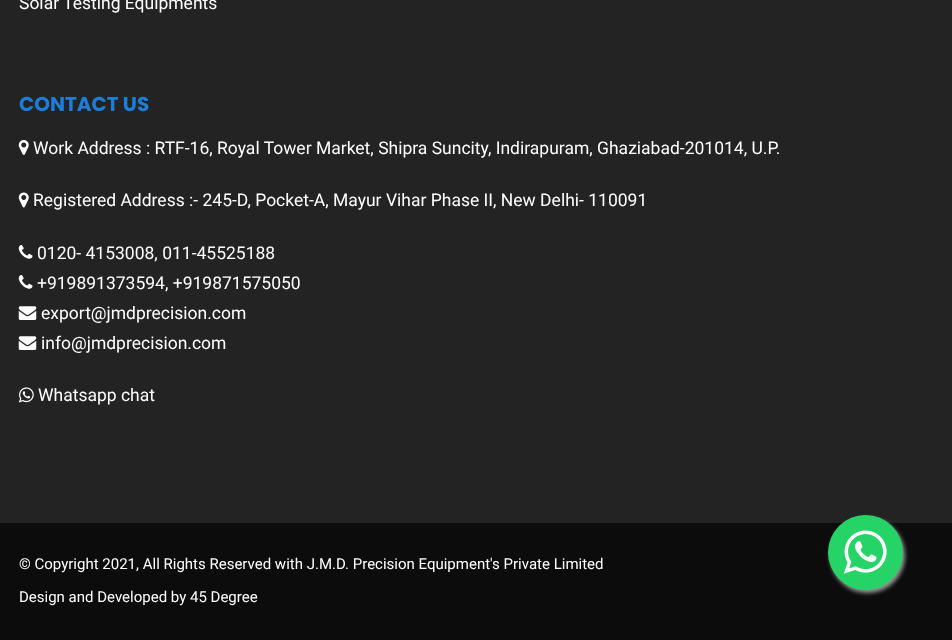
<svg xmlns="http://www.w3.org/2000/svg" width="952" height="640">
	<rect width="100%" height="100%" fill="#232323" />
	<text x="19" y="9" font-family="Roboto" font-size="17.5" fill="#FFFFFF">Solar Testing Equipments</text>
	<text x="19" y="111" font-family="Poppins" font-size="20" font-weight="700" fill="#1E7DD8">CONTACT US</text>
	<image x="18" y="140" width="11" height="15" href="assets/img1.png" />
	<text x="33" y="154" font-family="Roboto" font-size="17.5" fill="#FFFFFF">Work Address : RTF-16, Royal Tower Market, Shipra Suncity, Indirapuram, Ghaziabad-201014, U.P.</text>
	<image x="18" y="192" width="11" height="16" href="assets/img2.png" />
	<text x="33" y="206" font-family="Roboto" font-size="17.5" fill="#FFFFFF">Registered Address :- 245-D, Pocket-A, Mayur Vihar Phase II, New Delhi- 110091</text>
	<image x="18" y="245" width="15" height="14" href="assets/img3.png" />
	<text x="37" y="259" font-family="Roboto" font-size="17.5" fill="#FFFFFF">0120- 4153008, 011-45525188</text>
	<image x="18" y="275" width="15" height="14" href="assets/img3.png" />
	<text x="37" y="289" font-family="Roboto" font-size="17.5" fill="#FFFFFF">+919891373594, +919871575050</text>
	<image x="18" y="306" width="19" height="14" href="assets/img4.png" />
	<text x="41" y="319" font-family="Roboto" font-size="17.5" fill="#FFFFFF">export@jmdprecision.com</text>
	<image x="18" y="336" width="19" height="14" href="assets/img4.png" />
	<text x="41" y="349" font-family="Roboto" font-size="17.5" fill="#FFFFFF">info@jmdprecision.com</text>
	<image x="18" y="387" width="16" height="16" href="assets/img5.png" />
	<text x="38" y="401" font-family="Roboto" font-size="17.5" fill="#FFFFFF">Whatsapp chat</text>
	<rect x="0" y="523" width="952" height="117" fill="#0C0C0C" />
	<g font-family="Roboto" font-size="15" fill="#FFFFFF">
		<text x="19" y="569">© Copyright 2021, All Rights Reserved with J.M.D. Precision Equipment's Private Limited</text>
		<text x="19" y="602">Design and Developed by 45 Degree</text>
	</g>
	<rect x="830" y="518" width="75" height="75" rx="37.5" fill="#999999" filter="blur(2px)" />
	<circle cx="865.5" cy="552.5" r="37.5" fill="#25D366" />
	<image x="843" y="530" width="44" height="44" href="assets/img6.png" />
</svg>
